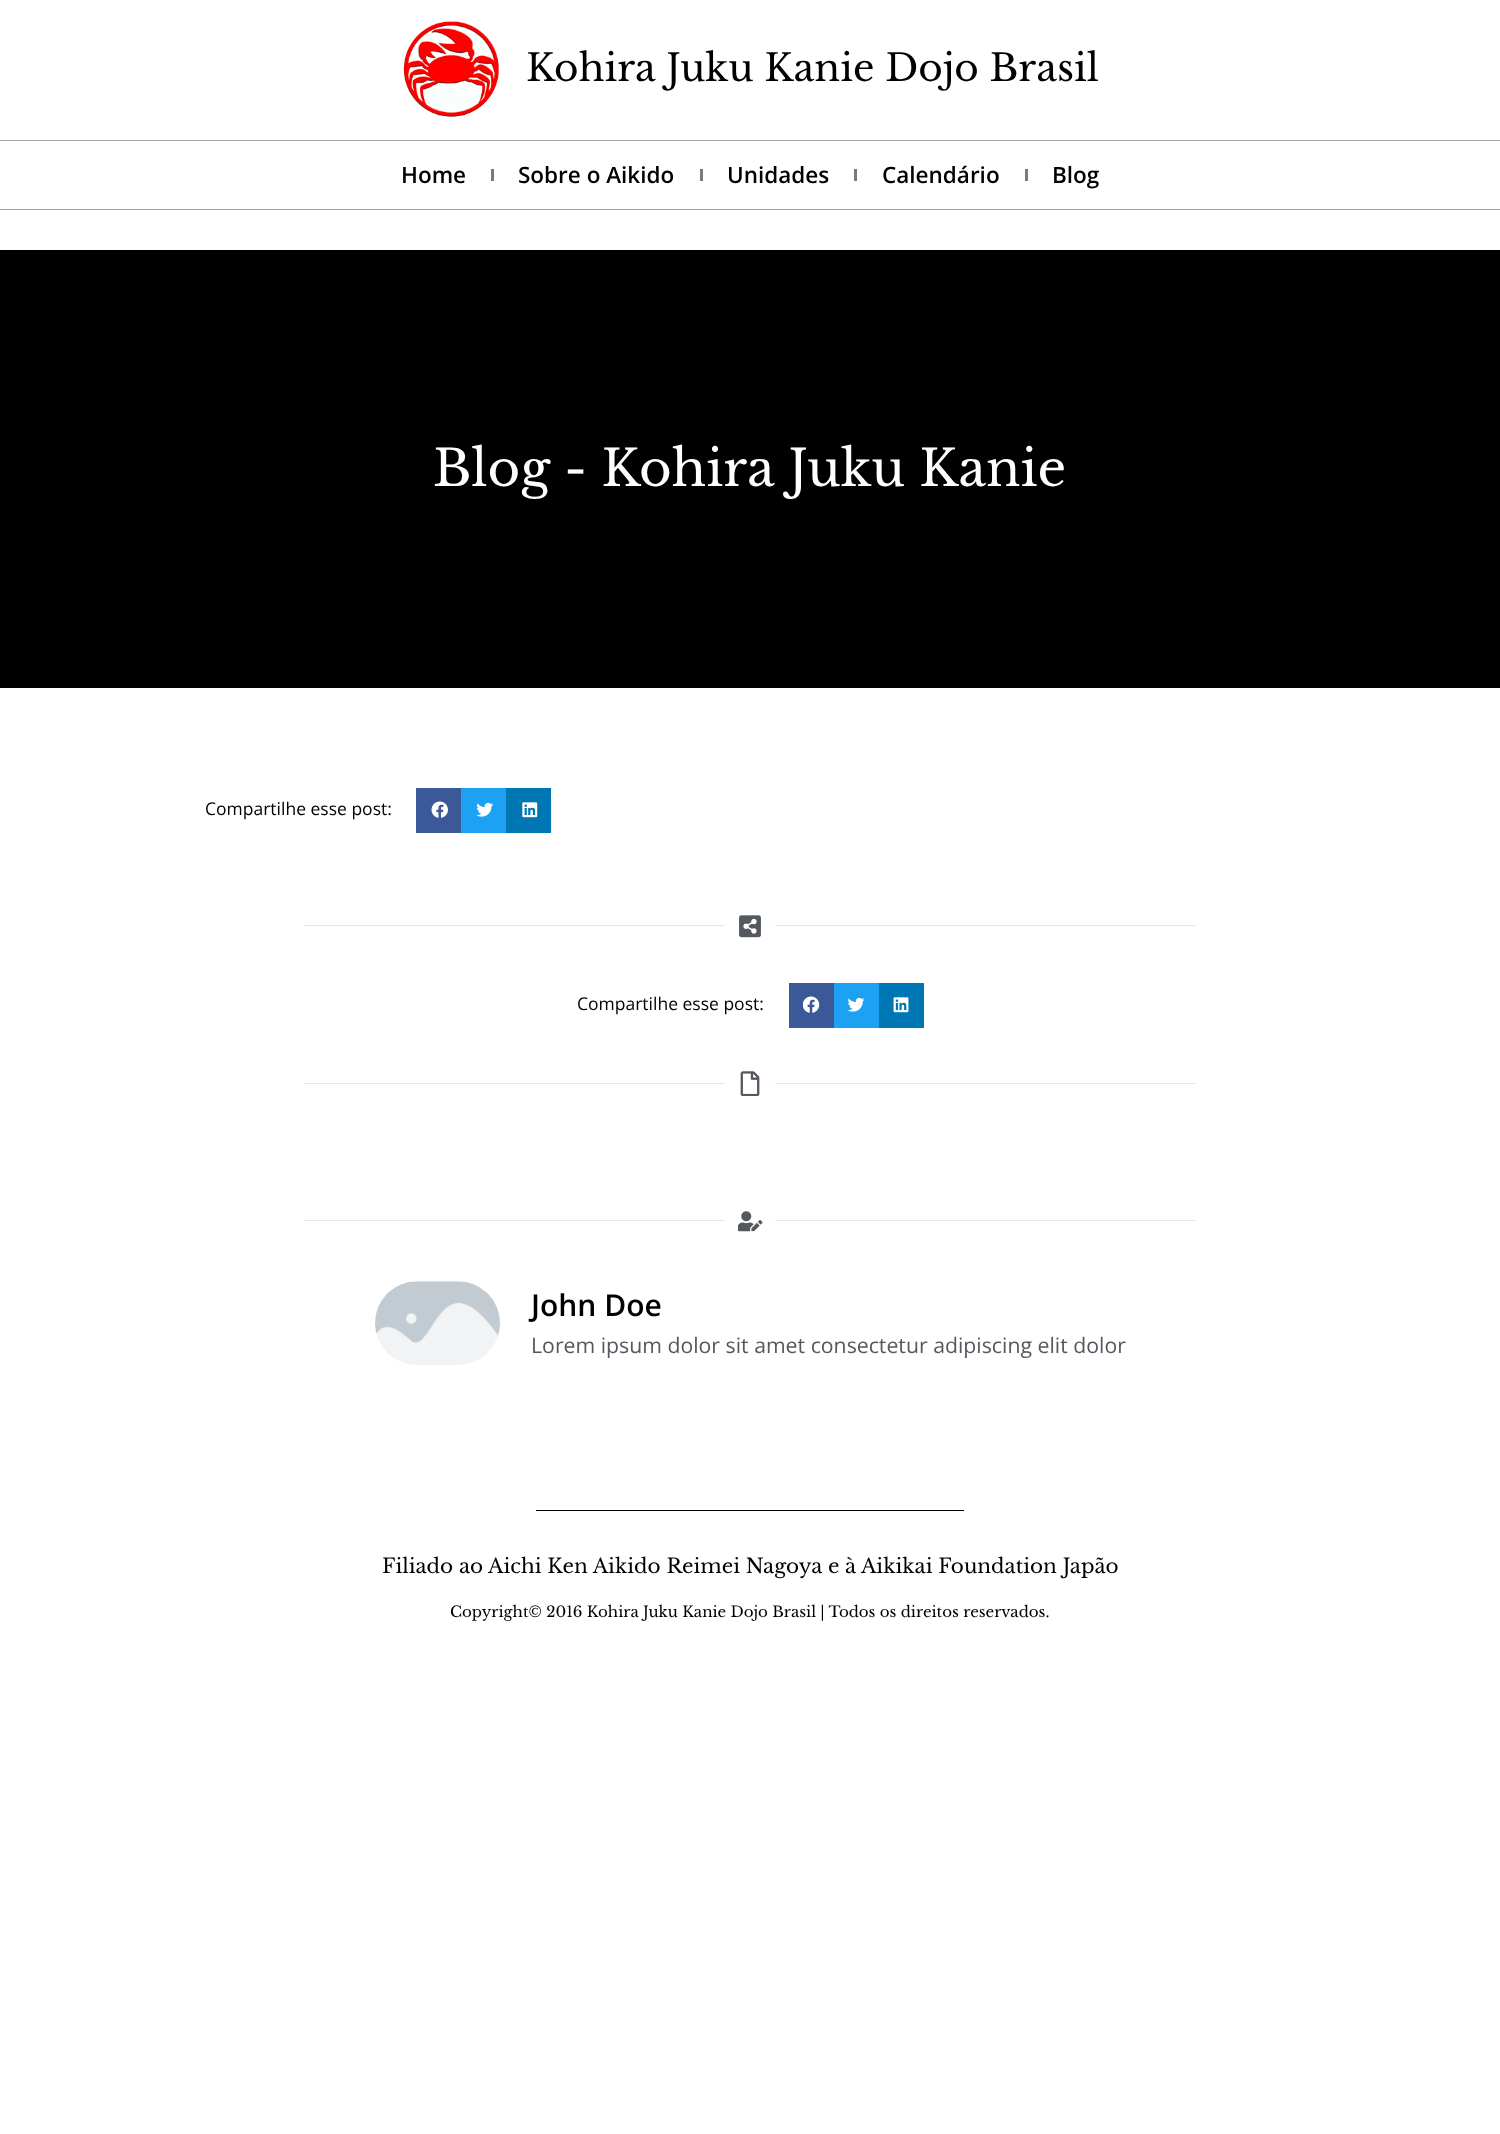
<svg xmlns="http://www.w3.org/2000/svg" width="1500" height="2134">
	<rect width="100%" height="100%" fill="#FFFFFF" />
	<image x="403" y="21" width="96" height="96" href="assets/img1.png" />
	<text x="526" y="81" font-family="Libre Baskerville" font-size="37.5" fill="#000000">Kohira Juku Kanie Dojo Brasil</text>
	<rect x="0" y="140" width="1500" height="1" fill="#A5A5A5" />
	<text x="401" y="183" font-family="Open Sans" font-size="22.5" font-weight="600" fill="#000000">Home</text>
	<rect x="491" y="169" width="3" height="12" fill="#7A7A7A" />
	<text x="518" y="183" font-family="Open Sans" font-size="22.5" font-weight="600" fill="#000000">Sobre o Aikido</text>
	<rect x="700" y="169" width="3" height="12" fill="#7A7A7A" />
	<text x="727" y="183" font-family="Open Sans" font-size="22.5" font-weight="600" fill="#000000">Unidades</text>
	<rect x="854" y="169" width="3" height="12" fill="#7A7A7A" />
	<text x="882" y="183" font-family="Open Sans" font-size="22.5" font-weight="600" fill="#000000">Calendário</text>
	<rect x="1025" y="169" width="3" height="12" fill="#7A7A7A" />
	<text x="1052" y="183" font-family="Open Sans" font-size="22.5" font-weight="600" fill="#000000">Blog</text>
	<rect x="0" y="209" width="1500" height="1" fill="#A5A5A5" />
	<rect x="0" y="250" width="1500" height="438" fill="#000000" />
	<text x="433" y="486" font-family="Libre Baskerville" font-size="50" fill="#FFFFFF">Blog - Kohira Juku Kanie</text>
	<text x="205" y="815" font-family="Open Sans" font-size="17.5" fill="#000000">Compartilhe esse post:</text>
	<rect x="416" y="788" width="45" height="45" fill="#3B5998" />
	<image x="431" y="801" width="17" height="17" href="assets/img2.png" />
	<rect x="461" y="788" width="45" height="45" fill="#1DA1F2" />
	<image x="476" y="802" width="17" height="15" href="assets/img3.png" />
	<rect x="506" y="788" width="45" height="45" fill="#0077B5" />
	<image x="522" y="802" width="16" height="16" href="assets/img4.png" />
	<rect x="304" y="925" width="421" height="1" fill="#E7E7E7" />
	<image x="739" y="915" width="22" height="23" href="assets/img5.png" />
	<rect x="775" y="925" width="421" height="1" fill="#E7E7E7" />
	<text x="577" y="1010" font-family="Open Sans" font-size="17.5" fill="#000000">Compartilhe esse post:</text>
	<rect x="789" y="983" width="45" height="45" fill="#3B5998" />
	<image x="803" y="996" width="17" height="17" href="assets/img6.png" />
	<rect x="834" y="983" width="45" height="45" fill="#1DA1F2" />
	<image x="848" y="997" width="17" height="15" href="assets/img7.png" />
	<rect x="879" y="983" width="45" height="45" fill="#0077B5" />
	<image x="893" y="997" width="16" height="16" href="assets/img8.png" />
	<rect x="304" y="1083" width="421" height="1" fill="#E7E7E7" />
	<image x="740" y="1071" width="20" height="25" href="assets/img9.png" />
	<rect x="775" y="1083" width="421" height="1" fill="#E7E7E7" />
	<rect x="304" y="1220" width="421" height="1" fill="#E7E7E7" />
	<image x="738" y="1211" width="25" height="21" href="assets/img10.png" />
	<rect x="775" y="1220" width="421" height="1" fill="#E7E7E7" />
	<image x="375" y="1281" width="125" height="84" href="assets/img11.png" />
	<text x="531" y="1316" font-family="Open Sans" font-size="30" font-weight="600" fill="#000000">John Doe</text>
	<text x="531" y="1353" font-family="Open Sans" font-size="21.25" fill="#54595F">Lorem ipsum dolor sit amet consectetur adipiscing elit dolor</text>
	<rect x="536" y="1510" width="428" height="1" fill="#000000" />
	<text x="382" y="1573" font-family="Libre Baskerville" font-size="20" fill="#000000">Filiado ao Aichi Ken Aikido Reimei Nagoya e à Aikikai Foundation Japão</text>
	<text x="450" y="1617" font-family="Libre Baskerville" font-size="15" fill="#000000">Copyright© 2016 Kohira Juku Kanie Dojo Brasil | Todos os direitos reservados.</text>
</svg>
